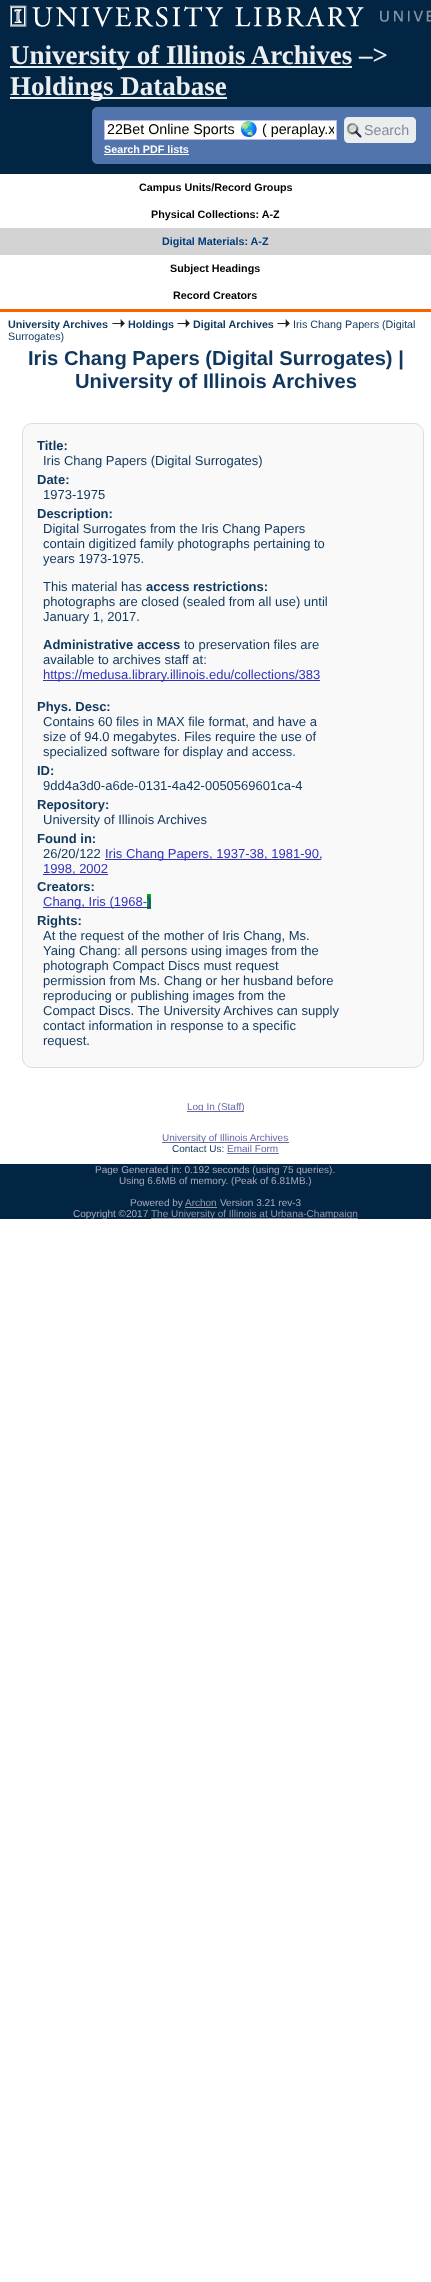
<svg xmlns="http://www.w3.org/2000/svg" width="431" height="2282">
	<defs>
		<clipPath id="clip1"><rect x="107" y="121" width="227" height="17" /></clipPath>
	</defs>
	<rect width="100%" height="100%" fill="#FFFFFF" />
	<rect x="0" y="0" width="431" height="174" fill="#022544" />
	<image x="10" y="5" width="421" height="22" href="assets/img1.png" />
	<rect x="0" y="309" width="431" height="3" fill="#FA6300" />
	<rect x="10" y="66" width="342" height="2" fill="#ECEFF1" />
	<text x="10" y="64" font-family="Liberation Serif" font-size="27" font-weight="700" fill="#ECEFF1">University of Illinois Archives –&gt;</text>
	<rect x="10" y="97" width="217" height="2" fill="#ECEFF1" />
	<text x="10" y="95" font-family="Liberation Serif" font-size="27" font-weight="700" fill="#ECEFF1">Holdings Database</text>
	<rect x="92.5" y="107.5" width="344" height="56" rx="4.5" fill="#5274AC" stroke="#5274AC" />
	<rect x="104.5" y="120.5" width="232" height="19" fill="#FFFFFF" stroke="#BBBBEE" />
	<text x="107" y="134" font-family="Liberation Sans" font-size="14.25" fill="#000000">22Bet Online Sports</text>
	<text x="240" y="134" font-family="Noto Color Emoji" font-size="14.25" fill="#000000">🌏</text>
	<g clip-path="url(#clip1)">
		<text x="262" y="134" font-family="Liberation Sans" font-size="14.25" fill="#000000">( peraplay.x</text>
	</g>
	<rect x="344" y="117" width="72" height="26" rx="5" fill="#EBEEEF" />
	<image x="346" y="122" width="16" height="16" href="assets/img2.png" />
	<path d="M349 117H411C414 117 416 119 416 122V138C416 141 414 143 411 143H349C346 143 344 141 344 138V122C344 119 346 117 349 117ZM349 118H411C413 118 415 120 415 122V138C415 140 413 142 411 142H349C346 142 344 140 344 138V122C344 120 346 118 349 118Z" fill="#EBEEEF" fill-rule="evenodd" />
	<text x="364" y="135" font-family="Liberation Sans" font-size="14.25" fill="#888899">Search</text>
	<text x="104" y="153" font-family="Liberation Sans" font-size="10.75" font-weight="700" fill="#FFFFFF">Search PDF lists</text>
	<rect x="104" y="154" width="85" height="1" fill="#FFFFFF" />
	<g font-family="Liberation Sans" font-size="10.75" font-weight="700" fill="#000000">
		<text x="139" y="191">Campus Units/Record Groups</text>
		<text x="151" y="218">Physical Collections: A-Z</text>
	</g>
	<rect x="0" y="228" width="431" height="27" fill="#D3D3D3" />
	<text x="162" y="245" font-family="Liberation Sans" font-size="10.75" font-weight="700" fill="#003C7B">Digital Materials: A-Z</text>
	<g font-family="Liberation Sans" font-size="10.75" font-weight="700" fill="#000000">
		<text x="170" y="272">Subject Headings</text>
		<text x="173" y="299">Record Creators</text>
	</g>
	<text x="8" y="328" font-family="Liberation Sans" font-size="10.75" font-weight="700" fill="#10375D">University Archives</text>
	<image x="112" y="319" width="13" height="9" href="assets/img3.png" />
	<text x="128" y="328" font-family="Liberation Sans" font-size="10.75" font-weight="700" fill="#10375D">Holdings</text>
	<image x="177" y="319" width="13" height="9" href="assets/img3.png" />
	<text x="193" y="328" font-family="Liberation Sans" font-size="10.75" font-weight="700" fill="#10375D">Digital Archives</text>
	<image x="277" y="319" width="13" height="9" href="assets/img3.png" />
	<g font-family="Liberation Sans" font-size="10.75" fill="#10375D">
		<text x="293" y="328">Iris Chang Papers (Digital</text>
		<text x="8" y="340">Surrogates)</text>
	</g>
	<g font-family="Liberation Sans" font-size="20.2" font-weight="700" fill="#10375D">
		<text x="28" y="365">Iris Chang Papers (Digital Surrogates) |</text>
		<text x="75" y="388">University of Illinois Archives</text>
	</g>
	<rect x="22.5" y="423.5" width="401" height="644" rx="9.5" fill="#F9F9FA" stroke="#DDDDDD" />
	<text x="37" y="450" font-family="Liberation Sans" font-size="13" font-weight="700" fill="#10375D">Title:</text>
	<text x="43" y="465" font-family="Liberation Sans" font-size="13" fill="#10375D">Iris Chang Papers (Digital Surrogates)</text>
	<text x="37" y="484" font-family="Liberation Sans" font-size="13" font-weight="700" fill="#10375D">Date:</text>
	<text x="43" y="499" font-family="Liberation Sans" font-size="13" fill="#10375D">1973-1975</text>
	<text x="37" y="518" font-family="Liberation Sans" font-size="13" font-weight="700" fill="#10375D">Description:</text>
	<g font-family="Liberation Sans" font-size="13" fill="#10375D">
		<text x="43" y="533">Digital Surrogates from the Iris Chang Papers</text>
		<text x="43" y="548">contain digitized family photographs pertaining to</text>
		<text x="43" y="563">years 1973-1975.</text>
		<text x="43" y="591">This material has</text>
	</g>
	<text x="146" y="591" font-family="Liberation Sans" font-size="13" font-weight="700" fill="#10375D">access restrictions:</text>
	<g font-family="Liberation Sans" font-size="13" fill="#10375D">
		<text x="43" y="606">photographs are closed (sealed from all use) until</text>
		<text x="43" y="621">January 1, 2017.</text>
	</g>
	<text x="43" y="649" font-family="Liberation Sans" font-size="13" font-weight="700" fill="#10375D">Administrative access</text>
	<g font-family="Liberation Sans" font-size="13" fill="#10375D">
		<text x="184" y="649">to preservation files are</text>
		<text x="43" y="664">available to archives staff at:</text>
	</g>
	<rect x="43" y="680" width="277" height="1" fill="#3333BB" />
	<text x="43" y="679" font-family="Liberation Sans" font-size="13" fill="#3333BB">https://medusa.library.illinois.edu/collections/383</text>
	<text x="37" y="711" font-family="Liberation Sans" font-size="13" font-weight="700" fill="#10375D">Phys. Desc:</text>
	<g font-family="Liberation Sans" font-size="13" fill="#10375D">
		<text x="43" y="726">Contains 60 files in MAX file format, and have a</text>
		<text x="43" y="741">size of 94.0 megabytes. Files require the use of</text>
		<text x="43" y="756">specialized software for display and access.</text>
	</g>
	<text x="37" y="775" font-family="Liberation Sans" font-size="13" font-weight="700" fill="#10375D">ID:</text>
	<text x="43" y="790" font-family="Liberation Sans" font-size="13" fill="#10375D">9dd4a3d0-a6de-0131-4a42-0050569601ca-4</text>
	<text x="37" y="809" font-family="Liberation Sans" font-size="13" font-weight="700" fill="#10375D">Repository:</text>
	<text x="43" y="824" font-family="Liberation Sans" font-size="13" fill="#10375D">University of Illinois Archives</text>
	<text x="37" y="843" font-family="Liberation Sans" font-size="13" font-weight="700" fill="#10375D">Found in:</text>
	<text x="43" y="858" font-family="Liberation Sans" font-size="13" fill="#10375D">26/20/122</text>
	<rect x="105" y="859" width="216" height="1" fill="#3333BB" />
	<text x="105" y="858" font-family="Liberation Sans" font-size="13" fill="#3333BB">Iris Chang Papers, 1937-38, 1981-90,</text>
	<rect x="43" y="874" width="65" height="1" fill="#3333BB" />
	<text x="43" y="873" font-family="Liberation Sans" font-size="13" fill="#3333BB">1998, 2002</text>
	<text x="37" y="891" font-family="Liberation Sans" font-size="13" font-weight="700" fill="#10375D">Creators:</text>
	<rect x="43" y="907" width="104" height="1" fill="#3333BB" />
	<text x="43" y="906" font-family="Liberation Sans" font-size="13" fill="#3333BB">Chang, Iris (1968-</text>
	<rect x="147" y="894" width="4" height="15" fill="#00AA00" />
	<rect x="147" y="907" width="4" height="1" fill="#3333BB" />
	<text x="147" y="906" font-family="Liberation Sans" font-size="13" font-weight="700" fill="#3333BB">)</text>
	<text x="37" y="925" font-family="Liberation Sans" font-size="13" font-weight="700" fill="#10375D">Rights:</text>
	<g font-family="Liberation Sans" font-size="13" fill="#10375D">
		<text x="43" y="940">At the request of the mother of Iris Chang, Ms.</text>
		<text x="43" y="955">Yaing Chang: all persons using images from the</text>
		<text x="43" y="970">photograph Compact Discs must request</text>
		<text x="43" y="985">permission from Ms. Chang or her husband before</text>
		<text x="43" y="1000">reproducing or publishing images from the</text>
		<text x="43" y="1015">Compact Discs. The University Archives can supply</text>
		<text x="43" y="1030">contact information in response to a specific</text>
		<text x="43" y="1045">request.</text>
	</g>
	<rect x="187" y="1111" width="57" height="1" fill="#6666AA" />
	<text x="187" y="1110" font-family="Liberation Sans" font-size="10" fill="#6666AA">Log In (Staff)</text>
	<rect x="162" y="1142" width="127" height="1" fill="#6666AA" />
	<text x="162" y="1141" font-family="Liberation Sans" font-size="10" fill="#6666AA">University of Illinois Archives</text>
	<text x="172" y="1152" font-family="Liberation Sans" font-size="10" fill="#10375D">Contact Us:</text>
	<text x="227" y="1152" font-family="Liberation Sans" font-size="10" fill="#6666AA">Email Form</text>
	<rect x="227" y="1153" width="52" height="1" fill="#6666AA" />
	<rect x="0" y="1164" width="431" height="55" fill="#022544" />
	<g font-family="Liberation Sans" font-size="10" fill="#AAAABB">
		<text x="95" y="1173">Page Generated in: 0.192 seconds (using 75 queries).</text>
		<text x="119" y="1184">Using 6.6MB of memory. (Peak of 6.81MB.)</text>
		<text x="130" y="1206">Powered by</text>
	</g>
	<text x="185" y="1206" font-family="Liberation Sans" font-size="10" fill="#9999AA">Archon</text>
	<rect x="185" y="1207" width="32" height="1" fill="#9999AA" />
	<g font-family="Liberation Sans" font-size="10" fill="#AAAABB">
		<text x="220" y="1206">Version 3.21 rev-3</text>
		<text x="73" y="1217">Copyright ©2017</text>
	</g>
	<rect x="151" y="1218" width="207" height="1" fill="#9999AA" />
	<text x="151" y="1217" font-family="Liberation Sans" font-size="10" fill="#9999AA">The University of Illinois at Urbana-Champaign</text>
</svg>
